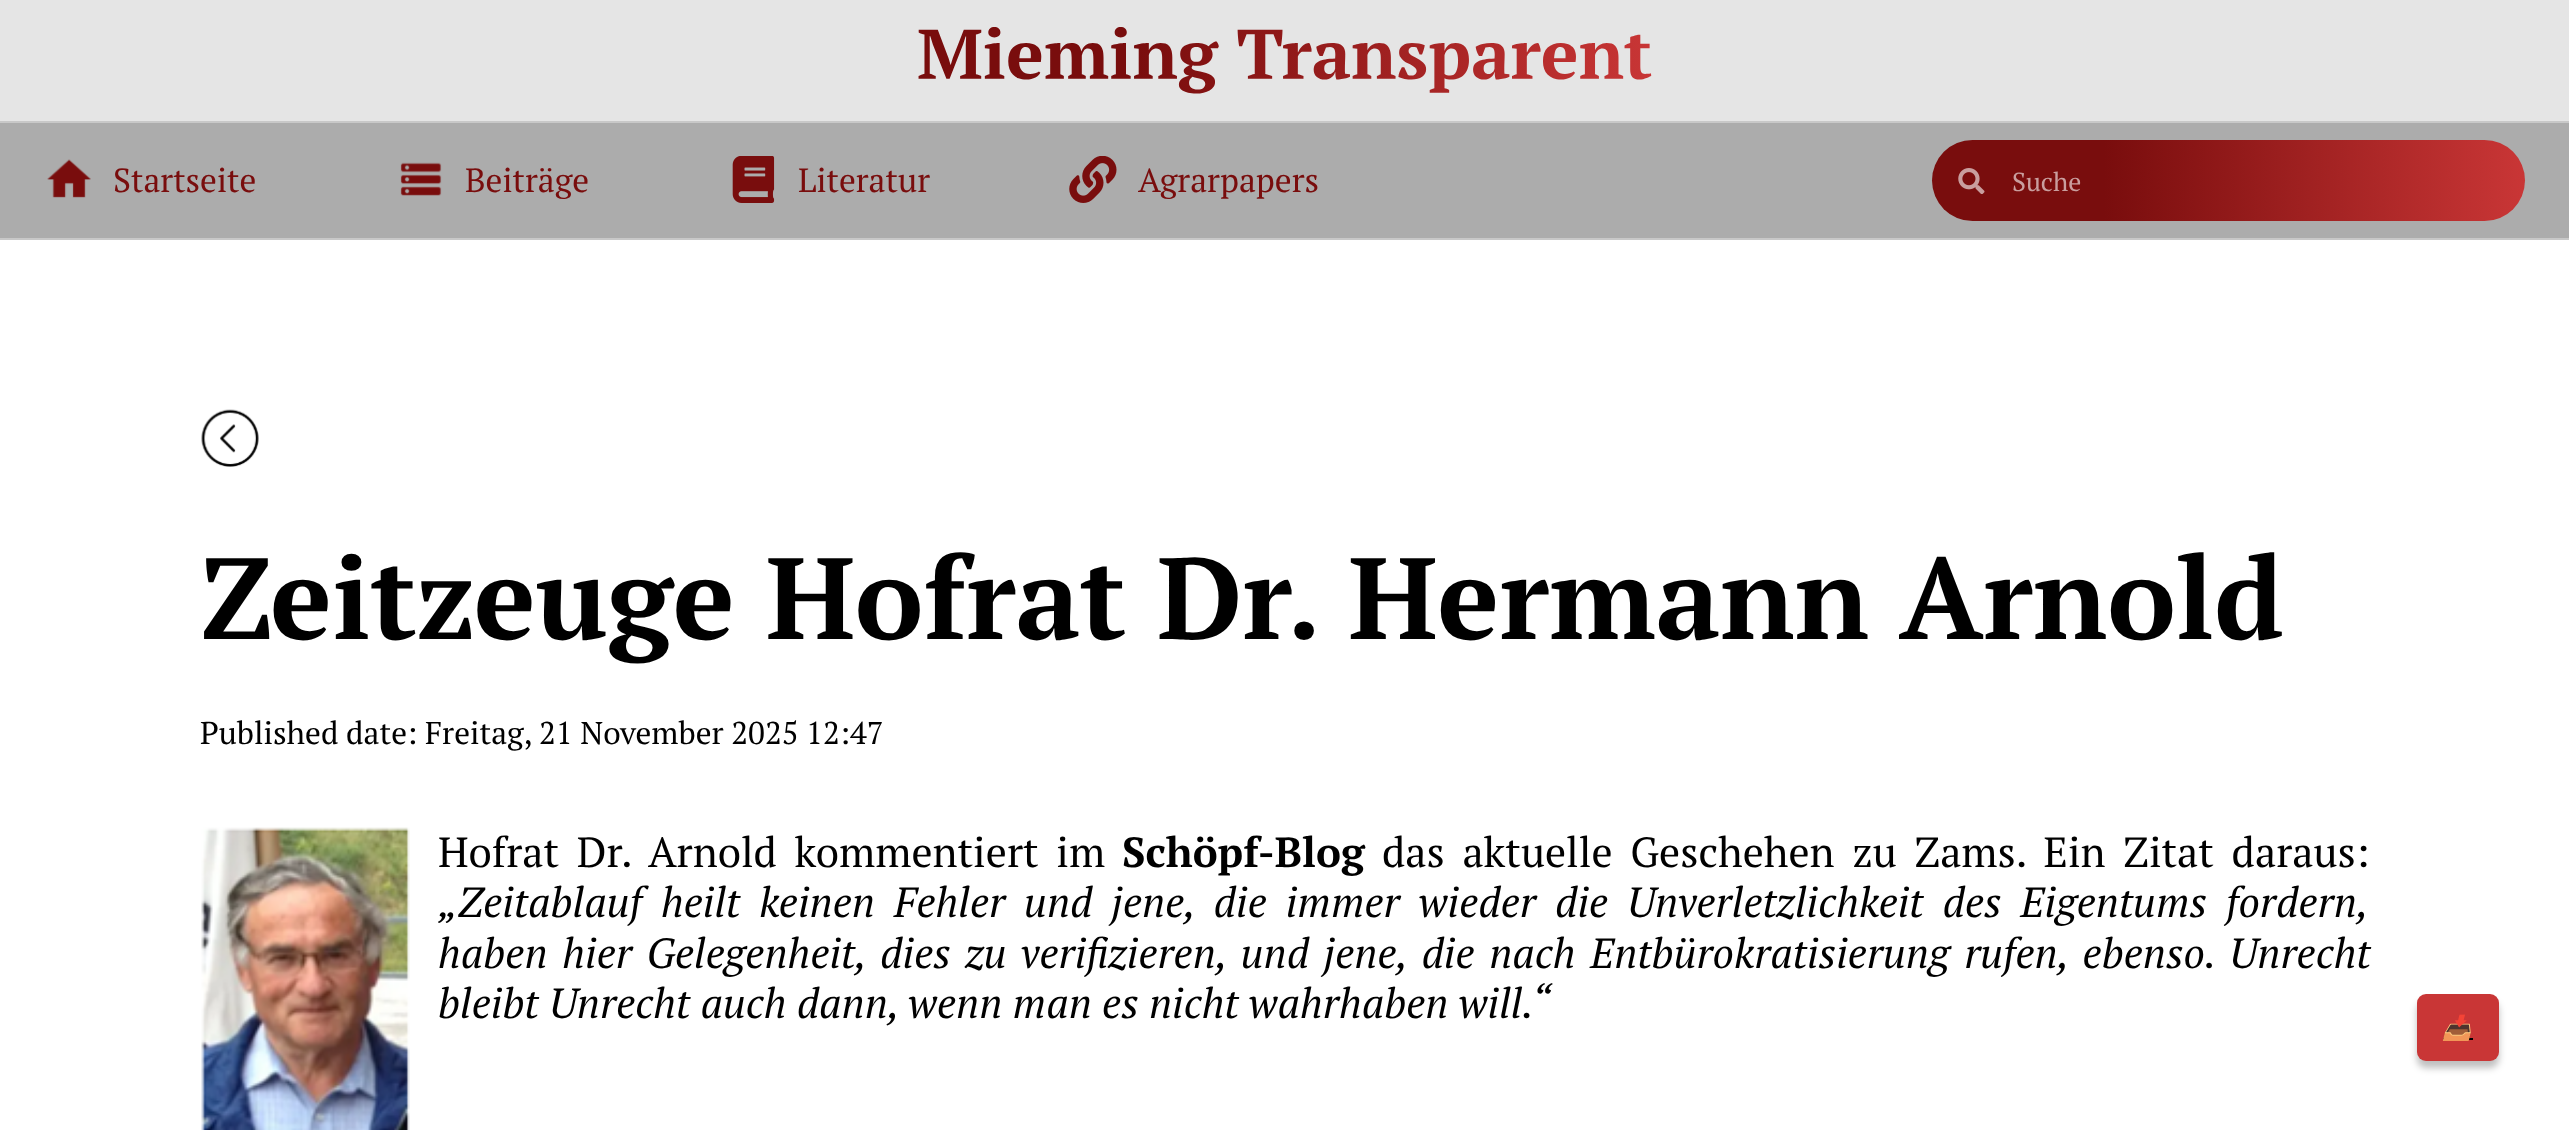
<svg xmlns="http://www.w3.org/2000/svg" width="2569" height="1130">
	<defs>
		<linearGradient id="g1" gradientUnits="userSpaceOnUse" x1="1932" y1="182" x2="2525" y2="178"><stop offset="0.29" stop-color="#790D0D" /><stop offset="1" stop-color="#C93636" /></linearGradient>
	</defs>
	<rect width="100%" height="100%" fill="#FFFFFF" />
	<rect x="0" y="0" width="2569" height="121" fill="#E5E5E5" />
	<image x="918" y="27" width="734" height="67" href="assets/img1.png" />
	<rect x="0" y="121" width="2569" height="2" fill="#C8C8C8" />
	<rect x="0" y="238" width="2569" height="2" fill="#C8C8C8" />
	<rect x="0" y="123" width="2569" height="115" fill="#ACACAC" />
	<image x="47" y="159" width="44" height="39" href="assets/img2.png" />
	<text x="113" y="192" font-family="PT Serif" font-size="33.5" fill="#790D0D">Startseite</text>
	<image x="400" y="162" width="42" height="34" href="assets/img3.png" />
	<text x="465" y="192" font-family="PT Serif" font-size="33.5" fill="#790D0D">Beiträge</text>
	<image x="732" y="156" width="43" height="47" href="assets/img4.png" />
	<text x="798" y="192" font-family="PT Serif" font-size="33.5" fill="#790D0D">Literatur</text>
	<image x="1069" y="156" width="48" height="47" href="assets/img5.png" />
	<text x="1138" y="192" font-family="PT Serif" font-size="33.5" fill="#790D0D">Agrarpapers</text>
	<rect x="1932" y="140" width="593" height="81" rx="40.5" fill="url(#g1)" />
	<image x="1958" y="168" width="27" height="26" href="assets/img6.png" />
	<text x="2012" y="191" font-family="PT Serif" font-size="26" fill="#C99E9E">Suche</text>
	<image x="201" y="409" width="58" height="58" href="assets/img7.png" />
	<text x="200" y="639" font-family="PT Serif" font-size="115.5" font-weight="700" fill="#000000">Zeitzeuge Hofrat Dr. Hermann Arnold</text>
	<text x="200" y="744" font-family="PT Serif" font-size="31.5" fill="#000000">Published date: Freitag, 21 November 2025 12:47</text>
	<image x="201" y="827" width="209" height="303" href="assets/img8.png" />
	<text x="438" y="867" word-spacing="7.5" font-family="PT Serif" font-size="42" fill="#000000">Hofrat Dr. Arnold kommentiert im</text>
	<text x="1122" y="867" font-family="PT Serif" font-size="42" font-weight="700" fill="#000000">Schöpf-Blog</text>
	<text x="1382" y="867" word-spacing="7.5" font-family="PT Serif" font-size="42" fill="#000000">das aktuelle Geschehen zu Zams. Ein Zitat daraus:</text>
	<g font-family="PT Serif" font-size="42" font-style="italic" fill="#000000">
		<text x="438" y="917" word-spacing="8.75">„Zeitablauf heilt keinen Fehler und jene, die immer wieder die Unverletzlichkeit des Eigentums fordern,</text>
		<text x="438" y="968" word-spacing="4.4">haben hier Gelegenheit, dies zu verifizieren, und jene, die nach Entbürokratisierung rufen, ebenso. Unrecht</text>
		<text x="438" y="1018">bleibt Unrecht auch dann, wenn man es nicht wahrhaben will.“</text>
	</g>
	<rect x="2417" y="1001" width="82" height="67" rx="9" fill="#000000" fill-opacity="0.25" filter="blur(3.5px)" />
	<rect x="2417" y="994" width="82" height="67" rx="9" fill="#C93636" />
	<rect x="2443" y="1038" width="30" height="2" fill="#000000" />
	<text x="2442" y="1036" font-family="Noto Color Emoji" font-size="24" font-style="italic" fill="#000000">📥</text>
</svg>
